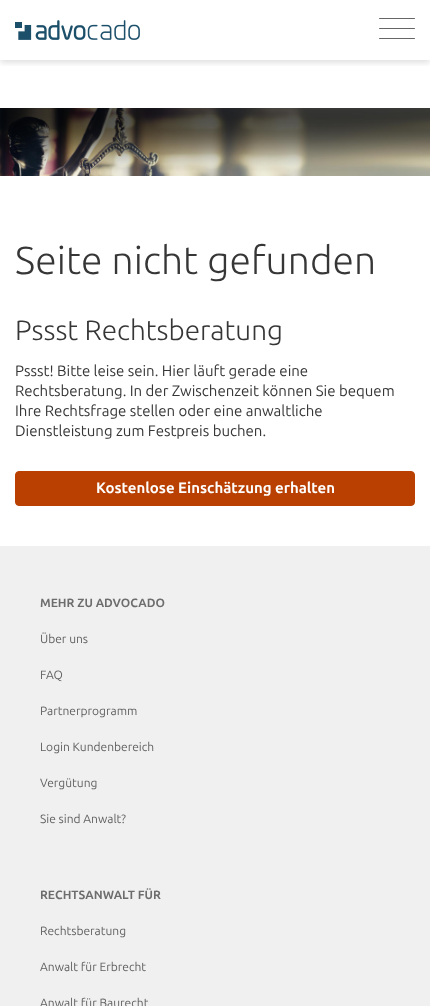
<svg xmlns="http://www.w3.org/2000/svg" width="430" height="1006">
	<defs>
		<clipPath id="clip1"><rect x="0" y="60" width="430" height="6" /></clipPath>
	</defs>
	<rect width="100%" height="100%" fill="#FFFFFF" />
	<g clip-path="url(#clip1)">
		<rect x="0" y="2" width="430" height="60" fill="#000000" fill-opacity="0.15" filter="blur(3.5px)" />
	</g>
	<image x="15" y="20" width="125" height="20" href="assets/img1.png" />
	<rect x="379" y="28" width="36" height="1" rx="0.5" fill="#666666" />
	<rect x="379" y="18" width="36" height="1" rx="0.5" fill="#666666" />
	<rect x="379" y="38" width="36" height="1" rx="0.5" fill="#666666" />
	<image x="0" y="108" width="430" height="68" href="assets/img2.png" />
	<text x="15" y="274" font-family="Ubuntu" font-size="39" font-weight="300" letter-spacing="0.1" fill="#363636">Seite nicht gefunden</text>
	<text x="15" y="340" font-family="Ubuntu" font-size="28" font-weight="300" fill="#363636">Pssst Rechtsberatung</text>
	<g font-family="Ubuntu" font-size="15" fill="#363636">
		<text x="15" y="376">Pssst! Bitte leise sein. Hier läuft gerade eine</text>
		<text x="15" y="396">Rechtsberatung. In der Zwischenzeit können Sie bequem</text>
		<text x="15" y="416">Ihre Rechtsfrage stellen oder eine anwaltliche</text>
		<text x="15" y="436">Dienstleistung zum Festpreis buchen.</text>
	</g>
	<rect x="15.5" y="471.5" width="399" height="34" rx="3.5" fill="#B94000" stroke="#B94000" />
	<text x="96" y="493" font-family="Ubuntu" font-size="15" font-weight="700" fill="#FFFFFF">Kostenlose Einschätzung erhalten</text>
	<rect x="0" y="546" width="430" height="460" fill="#F0F0F0" />
	<text x="40" y="607" font-family="Ubuntu" font-size="12" font-weight="700" fill="#6D6D6D">MEHR ZU ADVOCADO</text>
	<g font-family="Ubuntu" font-size="12" fill="#616161">
		<text x="40" y="643">Über uns</text>
		<text x="40" y="679">FAQ</text>
		<text x="40" y="715">Partnerprogramm</text>
		<text x="40" y="751">Login Kundenbereich</text>
		<text x="40" y="787">Vergütung</text>
		<text x="40" y="823">Sie sind Anwalt?</text>
	</g>
	<text x="40" y="899" font-family="Ubuntu" font-size="12" font-weight="700" fill="#6D6D6D">RECHTSANWALT FÜR</text>
	<g font-family="Ubuntu" font-size="12" fill="#616161">
		<text x="40" y="935">Rechtsberatung</text>
		<text x="40" y="971">Anwalt für Erbrecht</text>
		<text x="40" y="1007">Anwalt für Baurecht</text>
	</g>
</svg>
